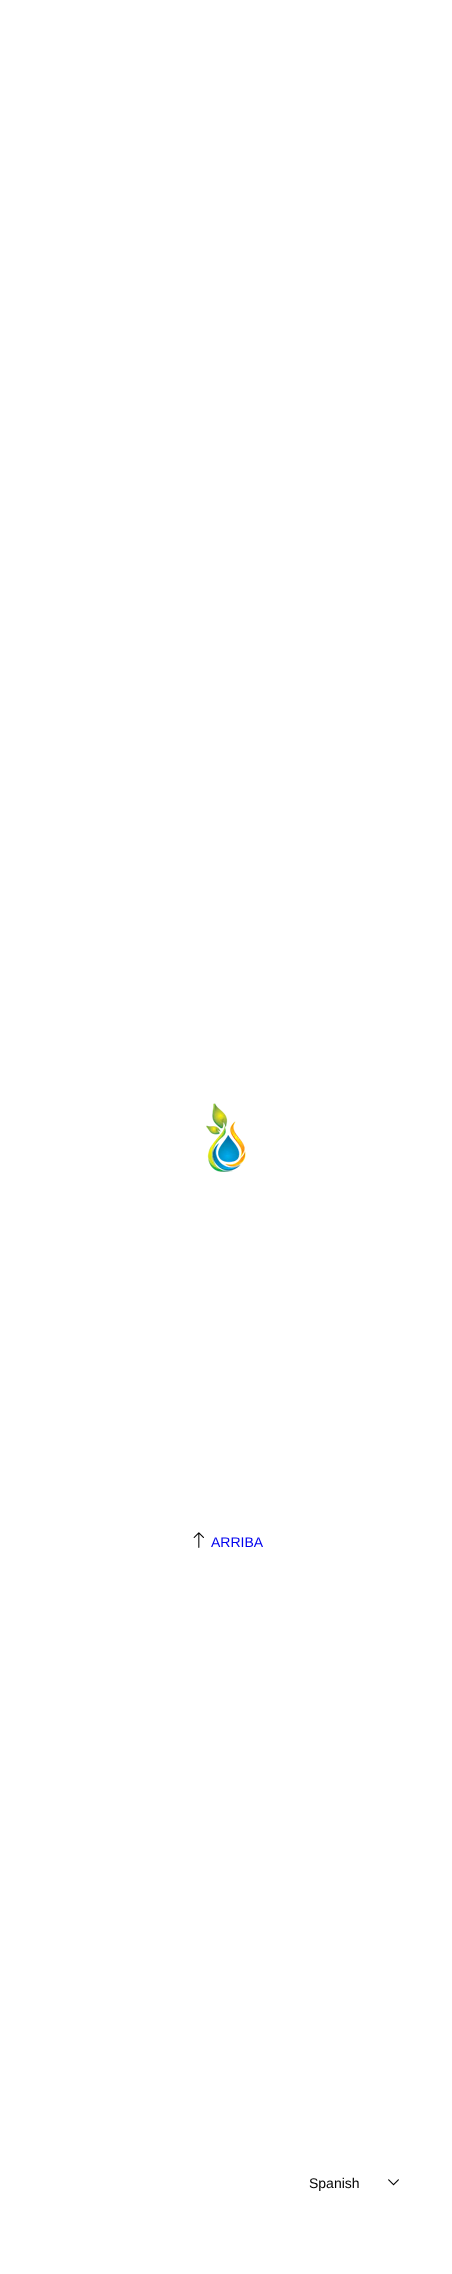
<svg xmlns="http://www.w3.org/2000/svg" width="452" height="2274">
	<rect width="100%" height="100%" fill="#FFFFFF" />
	<image x="206" y="1103" width="40" height="69" href="assets/img1.png" />
	<image x="193" y="1532" width="11" height="16" href="assets/img2.png" />
	<text x="211" y="1547" font-family="Arimo" font-size="14" fill="#0000EE">ARRIBA</text>
	<text x="309" y="2188" font-family="Arimo" font-size="14" fill="#000000">Spanish</text>
	<image x="388" y="2179" width="11" height="7" href="assets/img3.png" />
</svg>
